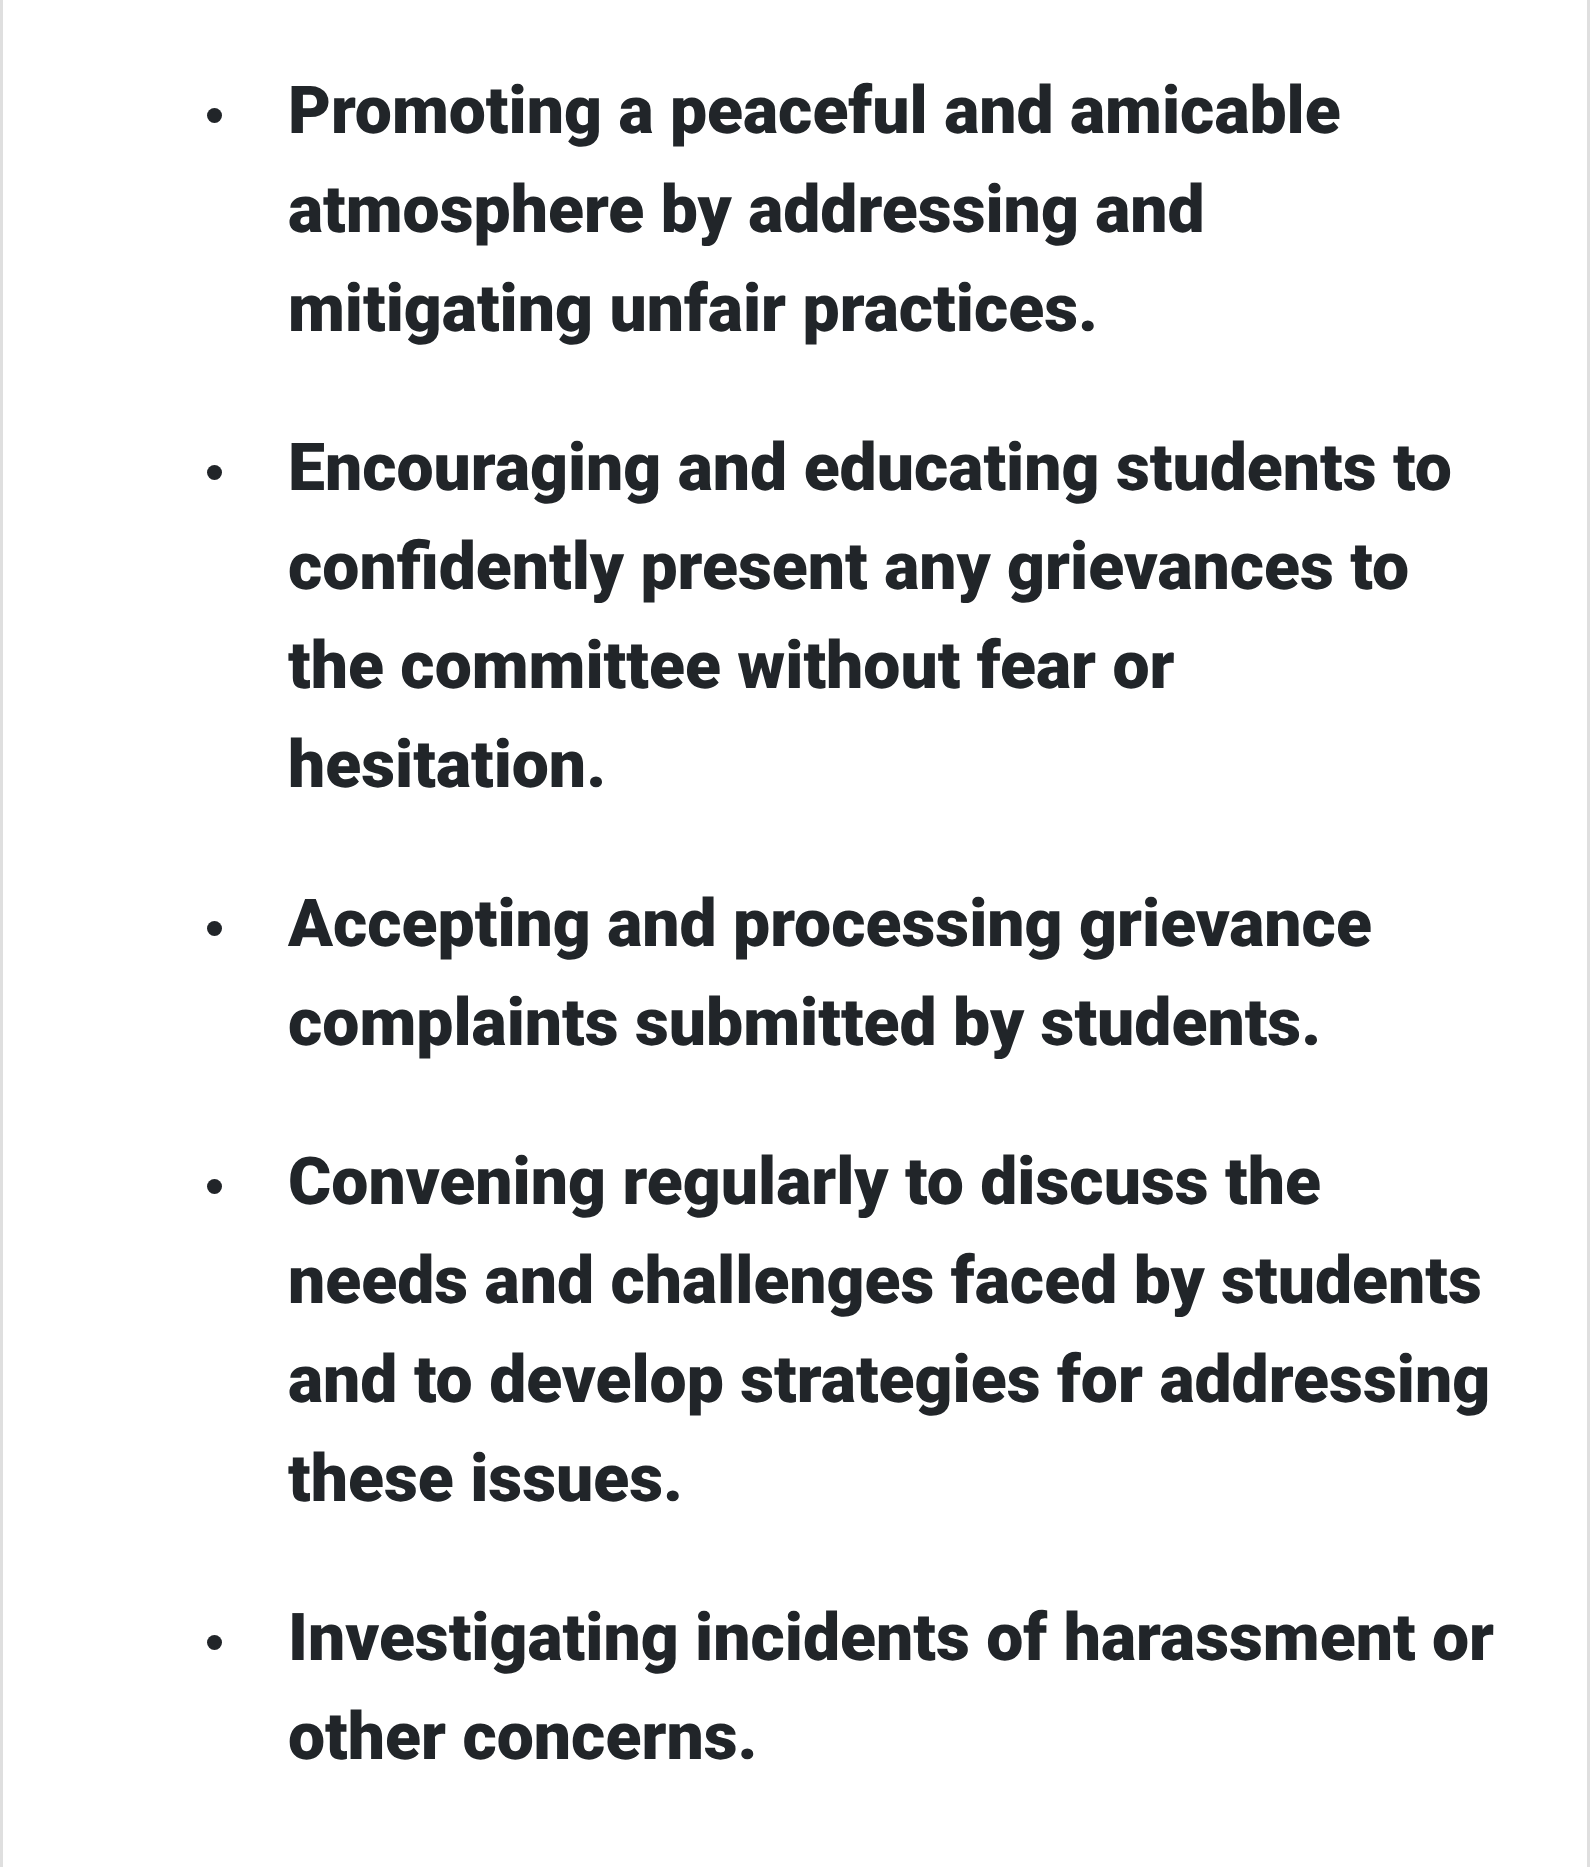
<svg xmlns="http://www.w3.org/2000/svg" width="1590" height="1867">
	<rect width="100%" height="100%" fill="#FFFFFF" />
	<rect x="1.5" y="-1.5" width="1587" height="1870" fill="none" stroke="#DFDFDF" stroke-width="3" />
	<circle cx="214.5" cy="115.5" r="7.5" fill="#212529" />
	<g font-family="Roboto" font-size="66" font-weight="900" fill="#212529">
		<text x="288" y="133">Promoting a peaceful and amicable</text>
		<text x="288" y="232">atmosphere by addressing and</text>
		<text x="288" y="331">mitigating unfair practices.</text>
	</g>
	<circle cx="214.5" cy="472.5" r="7.5" fill="#212529" />
	<g font-family="Roboto" font-size="66" font-weight="900" fill="#212529">
		<text x="288" y="490">Encouraging and educating students to</text>
		<text x="288" y="589">confidently present any grievances to</text>
		<text x="288" y="688">the committee without fear or</text>
		<text x="288" y="787">hesitation.</text>
	</g>
	<circle cx="214.5" cy="928.5" r="7.5" fill="#212529" />
	<g font-family="Roboto" font-size="66" font-weight="900" fill="#212529">
		<text x="288" y="946">Accepting and processing grievance</text>
		<text x="288" y="1045">complaints submitted by students.</text>
	</g>
	<circle cx="214.5" cy="1186.5" r="7.5" fill="#212529" />
	<g font-family="Roboto" font-size="66" font-weight="900" fill="#212529">
		<text x="288" y="1204">Convening regularly to discuss the</text>
		<text x="288" y="1303">needs and challenges faced by students</text>
		<text x="288" y="1402">and to develop strategies for addressing</text>
		<text x="288" y="1501">these issues.</text>
	</g>
	<circle cx="214.5" cy="1642.5" r="7.5" fill="#212529" />
	<g font-family="Roboto" font-size="66" font-weight="900" fill="#212529">
		<text x="288" y="1660">Investigating incidents of harassment or</text>
		<text x="288" y="1759">other concerns.</text>
	</g>
</svg>
